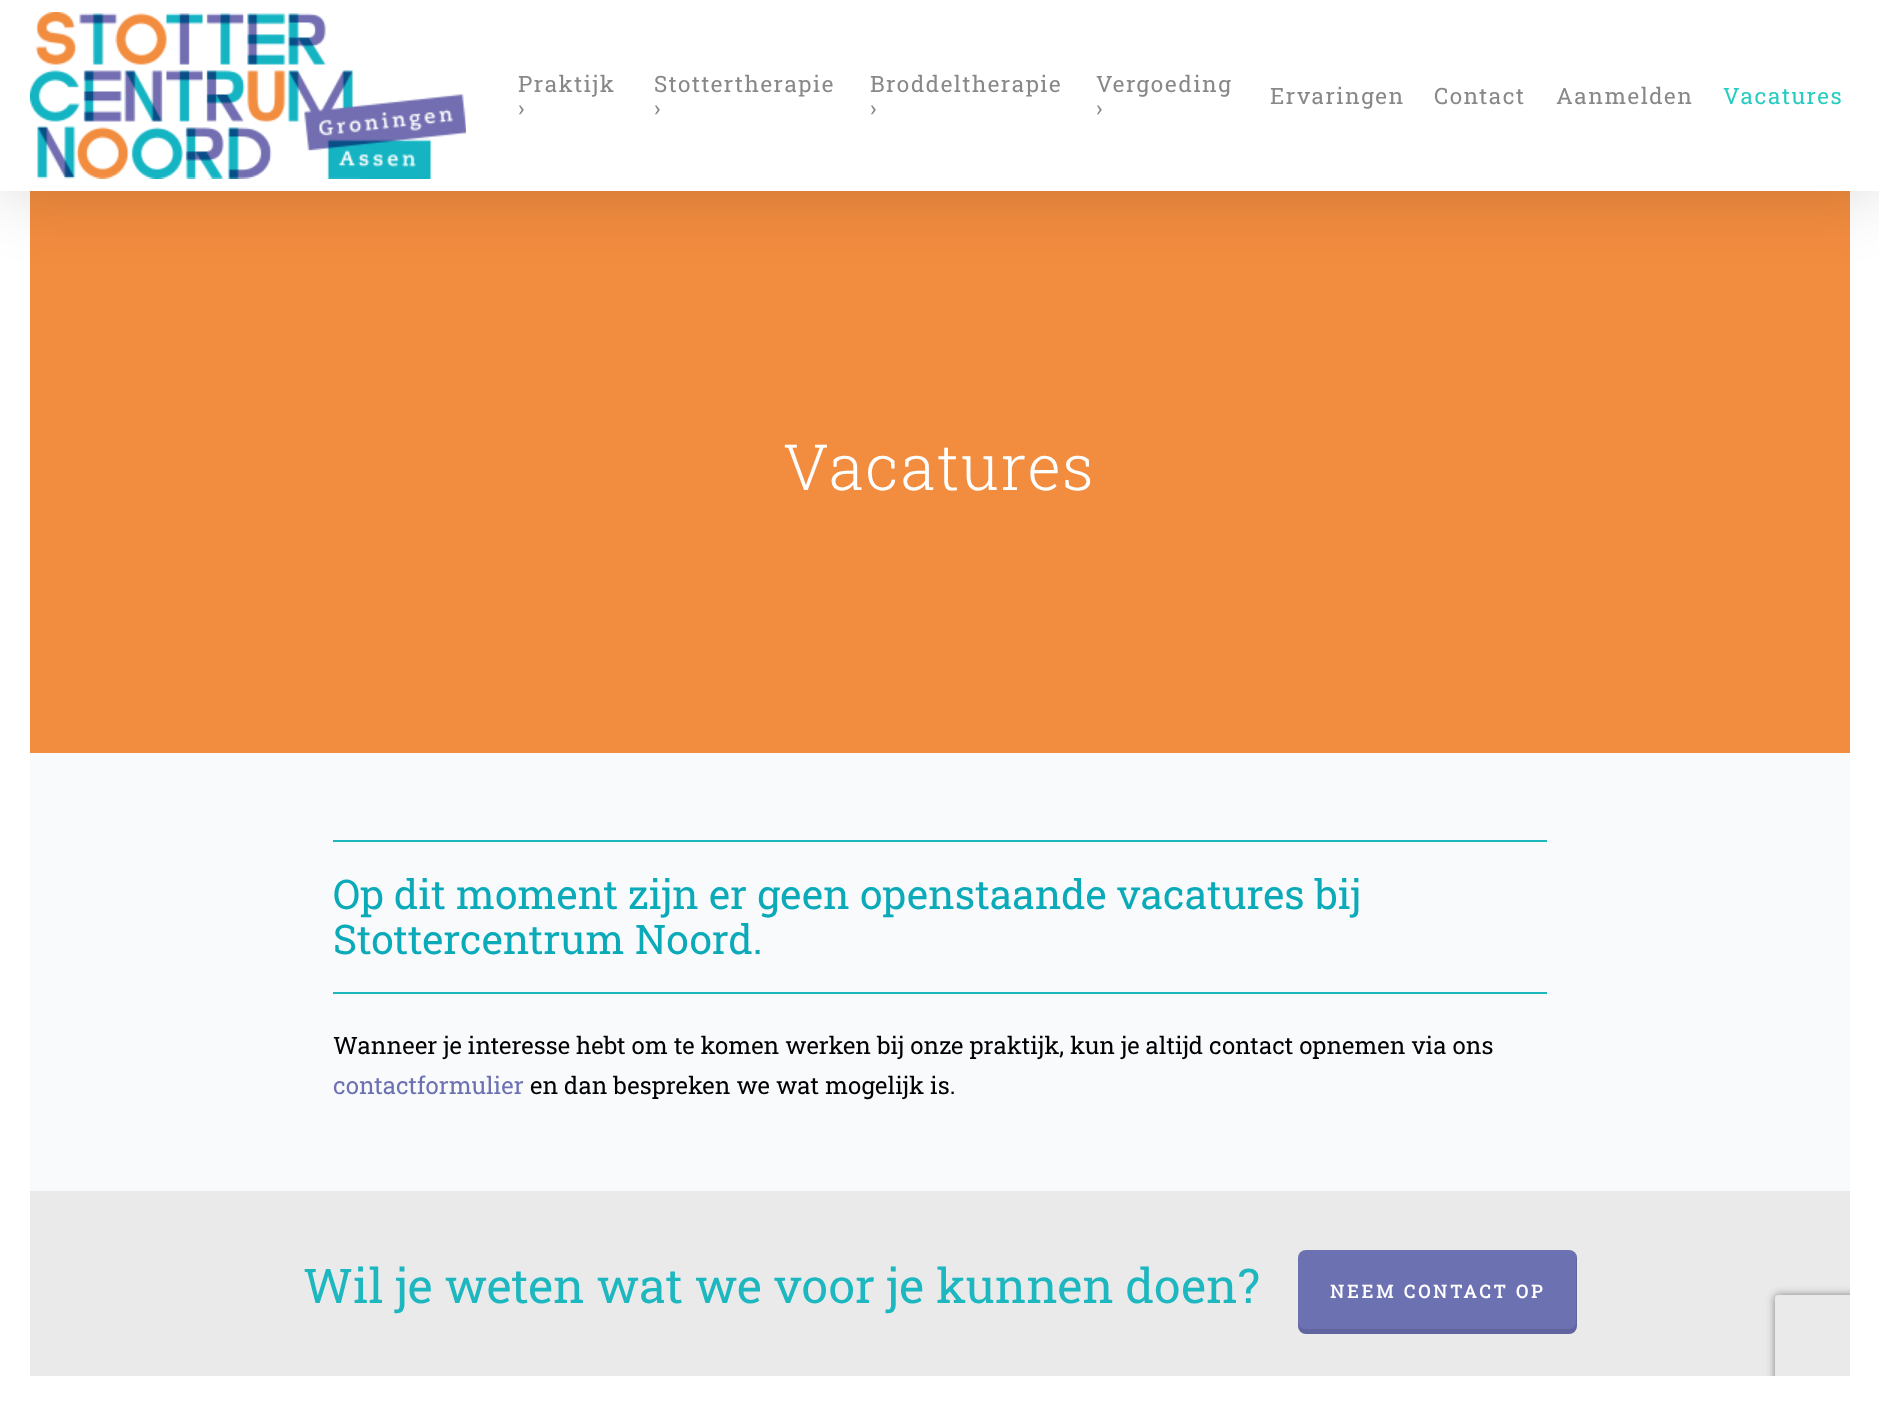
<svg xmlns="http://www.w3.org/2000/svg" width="1879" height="1405">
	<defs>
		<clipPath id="clip1"><path d="M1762 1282H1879V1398H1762ZM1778 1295H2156C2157.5 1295 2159 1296.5 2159 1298V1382C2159 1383.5 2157.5 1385 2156 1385H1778C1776.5 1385 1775 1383.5 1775 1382V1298C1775 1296.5 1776.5 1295 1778 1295Z" clip-rule="evenodd" /></clipPath>
	</defs>
	<rect width="100%" height="100%" fill="#F28C3F" />
	<rect x="0" y="191" width="30" height="1214" fill="#FFFFFF" />
	<rect x="30" y="1191" width="1820" height="185" fill="#EAEAEA" />
	<g clip-path="url(#clip1)">
		<rect x="1775" y="1295" width="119" height="90" rx="3" fill="#808080" filter="blur(4px)" />
	</g>
	<rect x="1850" y="191" width="29" height="1185" fill="#FFFFFF" />
	<rect x="0" y="5" width="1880" height="190" fill="#000000" fill-opacity="0.15" filter="blur(34px)" />
	<rect x="0" y="0" width="1879" height="191" fill="#FFFFFF" />
	<image x="30" y="12" width="436" height="167" href="assets/img1.png" />
	<g font-family="Roboto Slab" font-size="22.5" letter-spacing="1.5" fill="#888888">
		<text x="518" y="92">Praktijk</text>
		<text x="518" y="116">›</text>
		<text x="654" y="92">Stottertherapie</text>
		<text x="654" y="116">›</text>
		<text x="870" y="92">Broddeltherapie</text>
		<text x="870" y="116">›</text>
		<text x="1096" y="92">Vergoeding</text>
		<text x="1096" y="116">›</text>
		<text x="1270" y="104">Ervaringen</text>
		<text x="1434" y="104">Contact</text>
		<text x="1556" y="104">Aanmelden</text>
	</g>
	<text x="1723" y="104" font-family="Roboto Slab" font-size="22.5" letter-spacing="1.5" fill="#27CCC0">Vacatures</text>
	<text x="783" y="490" font-family="Roboto Slab" font-size="63.75" font-weight="300" letter-spacing="1.5" fill="#FFFFFF">Vacatures</text>
	<rect x="30" y="753" width="1820" height="438" fill="#F9FAFC" />
	<rect x="333" y="840" width="1214" height="2" fill="#1DB7C0" />
	<g font-family="Roboto Slab" font-size="40.8" fill="#0AAAB9">
		<text x="333" y="909">Op dit moment zijn er geen openstaande vacatures bij</text>
		<text x="333" y="954">Stottercentrum Noord.</text>
	</g>
	<rect x="333" y="992" width="1214" height="2" fill="#1DB7C0" />
	<text x="333" y="1054" font-family="Roboto Slab" font-size="24" fill="#000000">Wanneer je interesse hebt om te komen werken bij onze praktijk, kun je altijd contact opnemen via ons</text>
	<text x="333" y="1094" font-family="Roboto Slab" font-size="24" fill="#6C71B2">contactformulier</text>
	<text x="530" y="1094" font-family="Roboto Slab" font-size="24" fill="#000000">en dan bespreken we wat mogelijk is.</text>
	<text x="303" y="1303" font-family="Roboto Slab" font-size="48" fill="#1DB7C0">Wil je weten wat we voor je kunnen doen?</text>
	<rect x="1298" y="1250" width="279" height="84" rx="8" fill="#6C71B2" />
	<path d="M1298 1322V1326C1298 1330 1302 1334 1306 1334H1569C1573 1334 1577 1330 1577 1326V1258C1577 1257 1577 1255 1576 1254V1322C1576 1326 1573 1329 1569 1329H1305C1301 1329 1298 1326 1298 1322Z" fill="#000000" fill-opacity="0.1" />
	<text x="1330" y="1298" font-family="Roboto Slab" font-size="18" font-weight="700" letter-spacing="3" fill="#FFFFFF">NEEM CONTACT OP</text>
	<rect x="30" y="1376" width="1849" height="29" fill="#FFFFFF" />
</svg>
